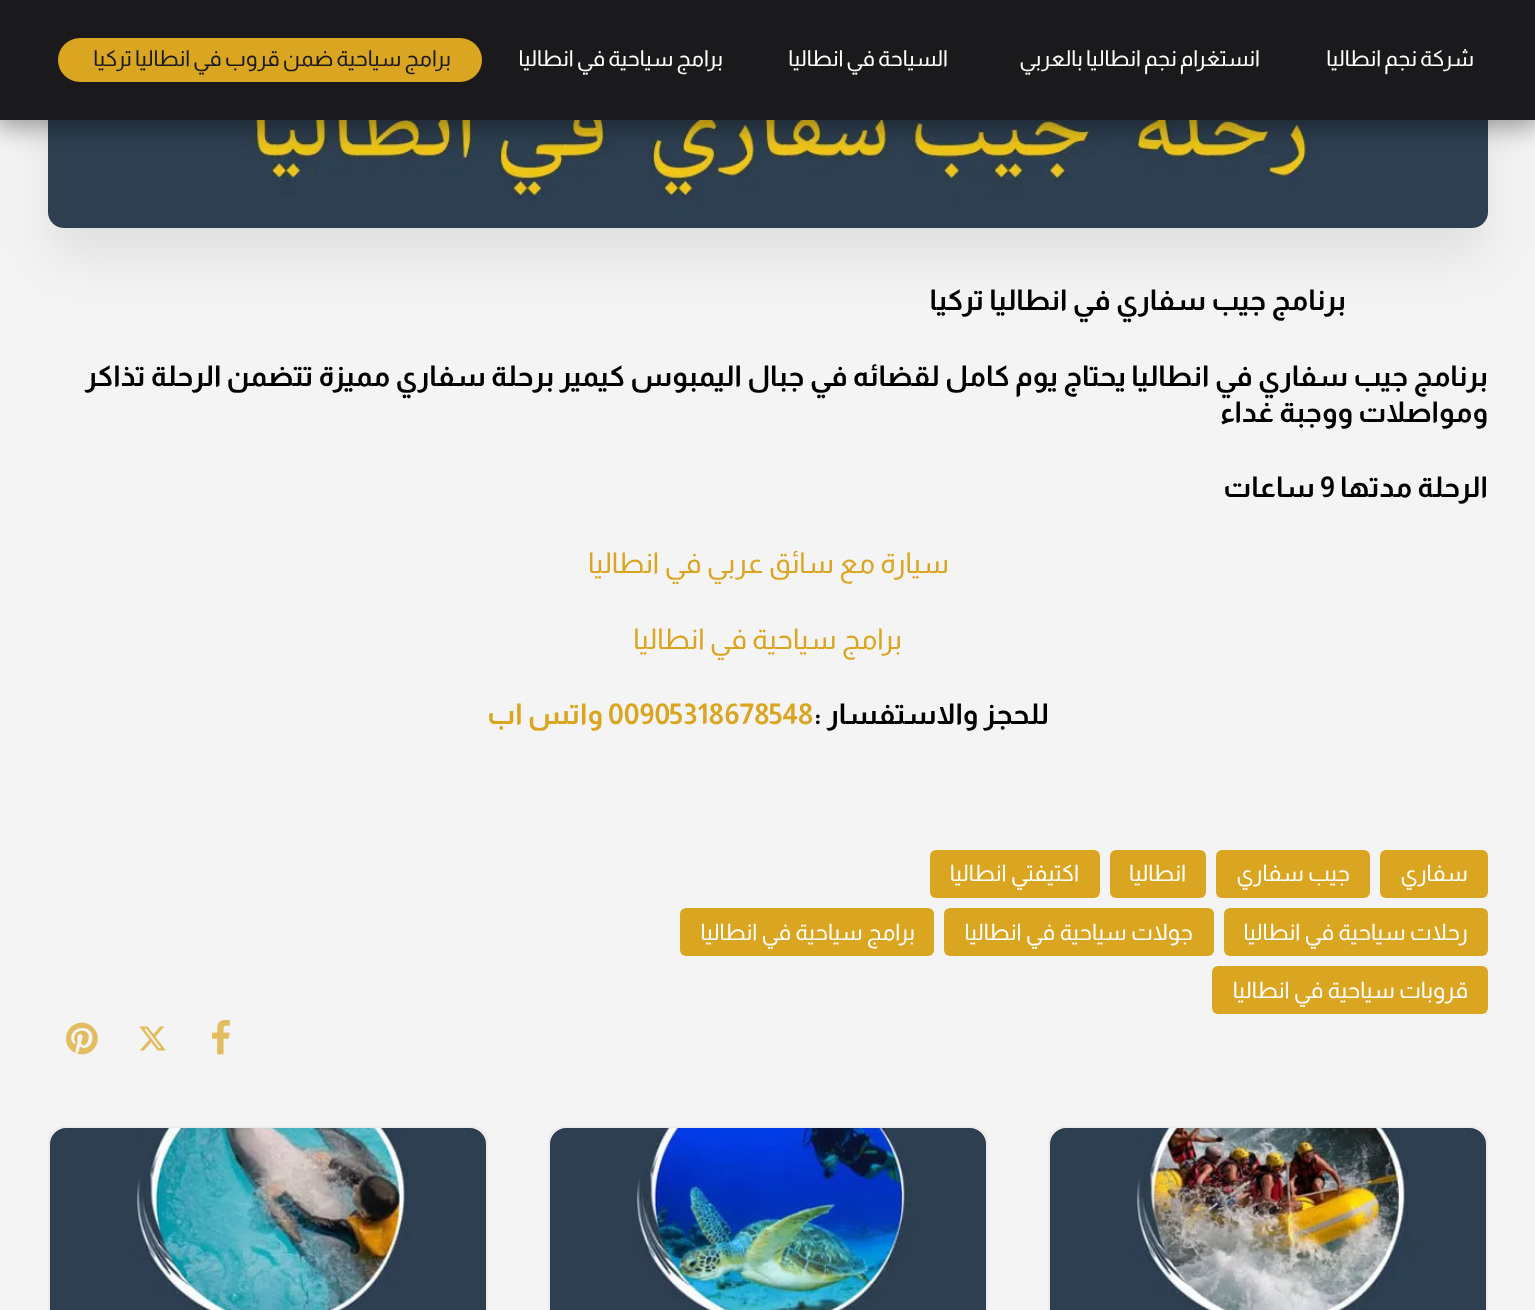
<svg xmlns="http://www.w3.org/2000/svg" width="1535" height="1310">
	<rect width="100%" height="100%" fill="#F4F4F4" />
	<rect x="48" y="-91" width="1440" height="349" rx="16" fill="#000000" fill-opacity="0.08" filter="blur(25px)" />
	<image x="48" y="120" width="1440" height="108" href="assets/img1.png" />
	<rect x="-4" y="0" width="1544" height="128" fill="#000000" fill-opacity="0.35" filter="blur(12px)" />
	<rect x="0" y="0" width="1535" height="120" fill="#1A1A1C" />
	<g font-family="Almarai" font-size="22" letter-spacing="0.15" direction="rtl" fill="#FFFFFF">
		<text x="1474" y="66" word-spacing="-1">شركة نجم انطاليا</text>
		<text x="1260" y="66" word-spacing="-1">انستغرام نجم انطاليا بالعربي</text>
		<text x="948" y="66" word-spacing="-1">السياحة في انطاليا</text>
		<text x="723" y="66" word-spacing="-1">برامج سياحية في انطاليا</text>
	</g>
	<rect x="58" y="38" width="424" height="44" rx="22" fill="#DAA520" />
	<text x="451" y="66" word-spacing="-1" font-family="Almarai" font-size="22" letter-spacing="0.15" direction="rtl" fill="#1A1A1C">برامج سياحية ضمن قروب في انطاليا تركيا</text>
	<g font-family="Almarai" font-size="28.5" font-weight="700" direction="rtl" fill="#000000">
		<text x="1346" y="310">برنامج جيب سفاري في انطاليا تركيا</text>
		<text x="1488" y="386">برنامج جيب سفاري في انطاليا يحتاج يوم كامل لقضائه في جبال اليمبوس كيمير برحلة سفاري مميزة تتضمن الرحلة تذاكر</text>
		<text x="1488" y="422">ومواصلات ووجبة غداء</text>
		<text x="1488" y="497">الرحلة مدتها</text>
	</g>
	<text x="1320" y="497" font-family="Almarai" font-size="28.5" font-weight="700" fill="#000000">9</text>
	<text x="1315" y="497" font-family="Almarai" font-size="28.5" font-weight="700" direction="rtl" fill="#000000">ساعات</text>
	<g font-family="Almarai" font-size="28.5" direction="rtl" fill="#DAA520">
		<text x="949" y="573">سيارة مع سائق عربي في انطاليا</text>
		<text x="902" y="649">برامج سياحية في انطاليا</text>
	</g>
	<text x="1049" y="724" font-family="Almarai" font-size="28.5" font-weight="700" direction="rtl" fill="#000000">للحجز والاستفسار :</text>
	<text x="608" y="724" font-family="Almarai" font-size="28.5" font-weight="700" fill="#DAA520">00905318678548</text>
	<text x="603" y="724" font-family="Almarai" font-size="28.5" font-weight="700" direction="rtl" fill="#DAA520">واتس اب</text>
	<rect x="1380" y="850" width="108" height="48" rx="6" fill="#DAA520" />
	<text x="1468" y="881" font-family="Almarai" font-size="22.75" direction="rtl" fill="#FFFFFF">سفاري</text>
	<rect x="1216" y="850" width="154" height="48" rx="6" fill="#DAA520" />
	<text x="1350" y="881" font-family="Almarai" font-size="22.75" direction="rtl" fill="#FFFFFF">جيب سفاري</text>
	<rect x="1110" y="850" width="96" height="48" rx="6" fill="#DAA520" />
	<text x="1186" y="881" font-family="Almarai" font-size="22.75" direction="rtl" fill="#FFFFFF">انطاليا</text>
	<rect x="930" y="850" width="170" height="48" rx="6" fill="#DAA520" />
	<text x="1079" y="881" font-family="Almarai" font-size="22.75" direction="rtl" fill="#FFFFFF">اكتيفتي انطاليا</text>
	<rect x="1224" y="908" width="264" height="48" rx="6" fill="#DAA520" />
	<text x="1468" y="940" font-family="Almarai" font-size="22.75" direction="rtl" fill="#FFFFFF">رحلات سياحية في انطاليا</text>
	<rect x="944" y="908" width="270" height="48" rx="6" fill="#DAA520" />
	<text x="1193" y="940" font-family="Almarai" font-size="22.75" direction="rtl" fill="#FFFFFF">جولات سياحية في انطاليا</text>
	<rect x="680" y="908" width="254" height="48" rx="6" fill="#DAA520" />
	<text x="915" y="940" font-family="Almarai" font-size="22.75" direction="rtl" fill="#FFFFFF">برامج سياحية في انطاليا</text>
	<rect x="1212" y="966" width="276" height="48" rx="6" fill="#DAA520" />
	<text x="1468" y="998" font-family="Almarai" font-size="22.75" direction="rtl" fill="#FFFFFF">قروبات سياحية في انطاليا</text>
	<image x="211" y="1020" width="19" height="35" href="assets/img2.png" />
	<image x="139" y="1026" width="27" height="25" href="assets/img3.png" />
	<image x="66" y="1022" width="32" height="33" href="assets/img4.png" />
	<rect x="1049" y="1127" width="438" height="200" rx="15" fill="#FFFFFF" stroke="#EBEBEB" stroke-width="2" />
	<image x="1050" y="1128" width="436" height="182" href="assets/img5.png" />
	<rect x="549" y="1127" width="438" height="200" rx="15" fill="#FFFFFF" stroke="#EBEBEB" stroke-width="2" />
	<image x="550" y="1128" width="436" height="182" href="assets/img6.png" />
	<rect x="49" y="1127" width="438" height="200" rx="15" fill="#FFFFFF" stroke="#EBEBEB" stroke-width="2" />
	<image x="50" y="1128" width="436" height="182" href="assets/img7.png" />
</svg>
